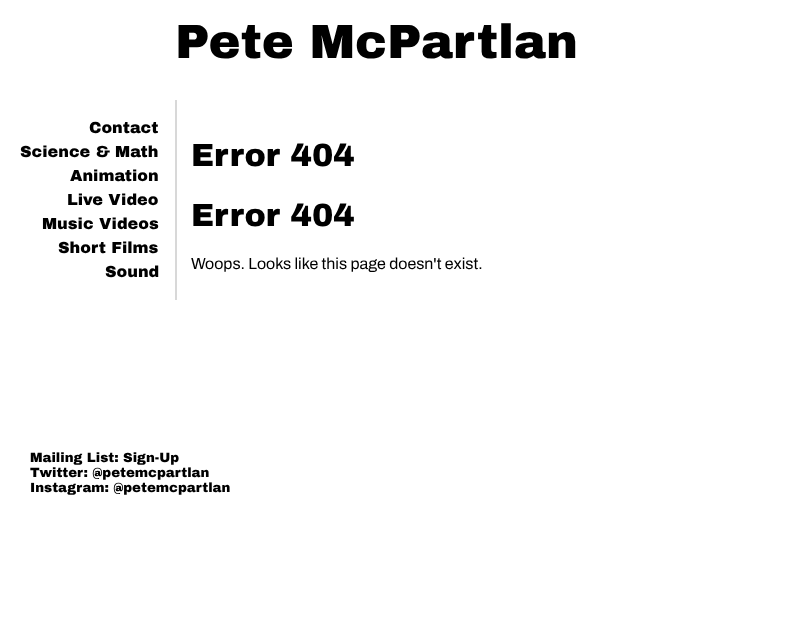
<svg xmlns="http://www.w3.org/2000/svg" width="794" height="641">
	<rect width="100%" height="100%" fill="#FFFFFF" />
	<text x="175" y="58" font-family="Archivo Black" font-size="48" font-weight="900" fill="#000000">Pete McPartlan</text>
	<rect x="175" y="100" width="2" height="200" fill="#D8D8D8" />
	<g font-family="Archivo Black" font-size="16" font-weight="900" fill="#000000">
		<text x="89" y="133">Contact</text>
		<text x="20" y="157">Science &amp; Math</text>
		<text x="70" y="181">Animation</text>
		<text x="67" y="205">Live Video</text>
		<text x="42" y="229">Music Videos</text>
		<text x="58" y="253">Short Films</text>
		<text x="105" y="277">Sound</text>
	</g>
	<g font-family="Archivo Black" font-size="32" font-weight="900" fill="#000000">
		<text x="191" y="166">Error 404</text>
		<text x="191" y="226">Error 404</text>
	</g>
	<text x="191" y="269" font-family="Archivo" font-size="16" font-weight="600" fill="#000000">Woops. Looks like this page doesn't exist.</text>
	<g font-family="Archivo Black" font-size="13.3" font-weight="900" fill="#000000">
		<text x="30" y="462">Mailing List: Sign-Up</text>
		<text x="30" y="477">Twitter: @petemcpartlan</text>
		<text x="30" y="492">Instagram: @petemcpartlan</text>
	</g>
</svg>
